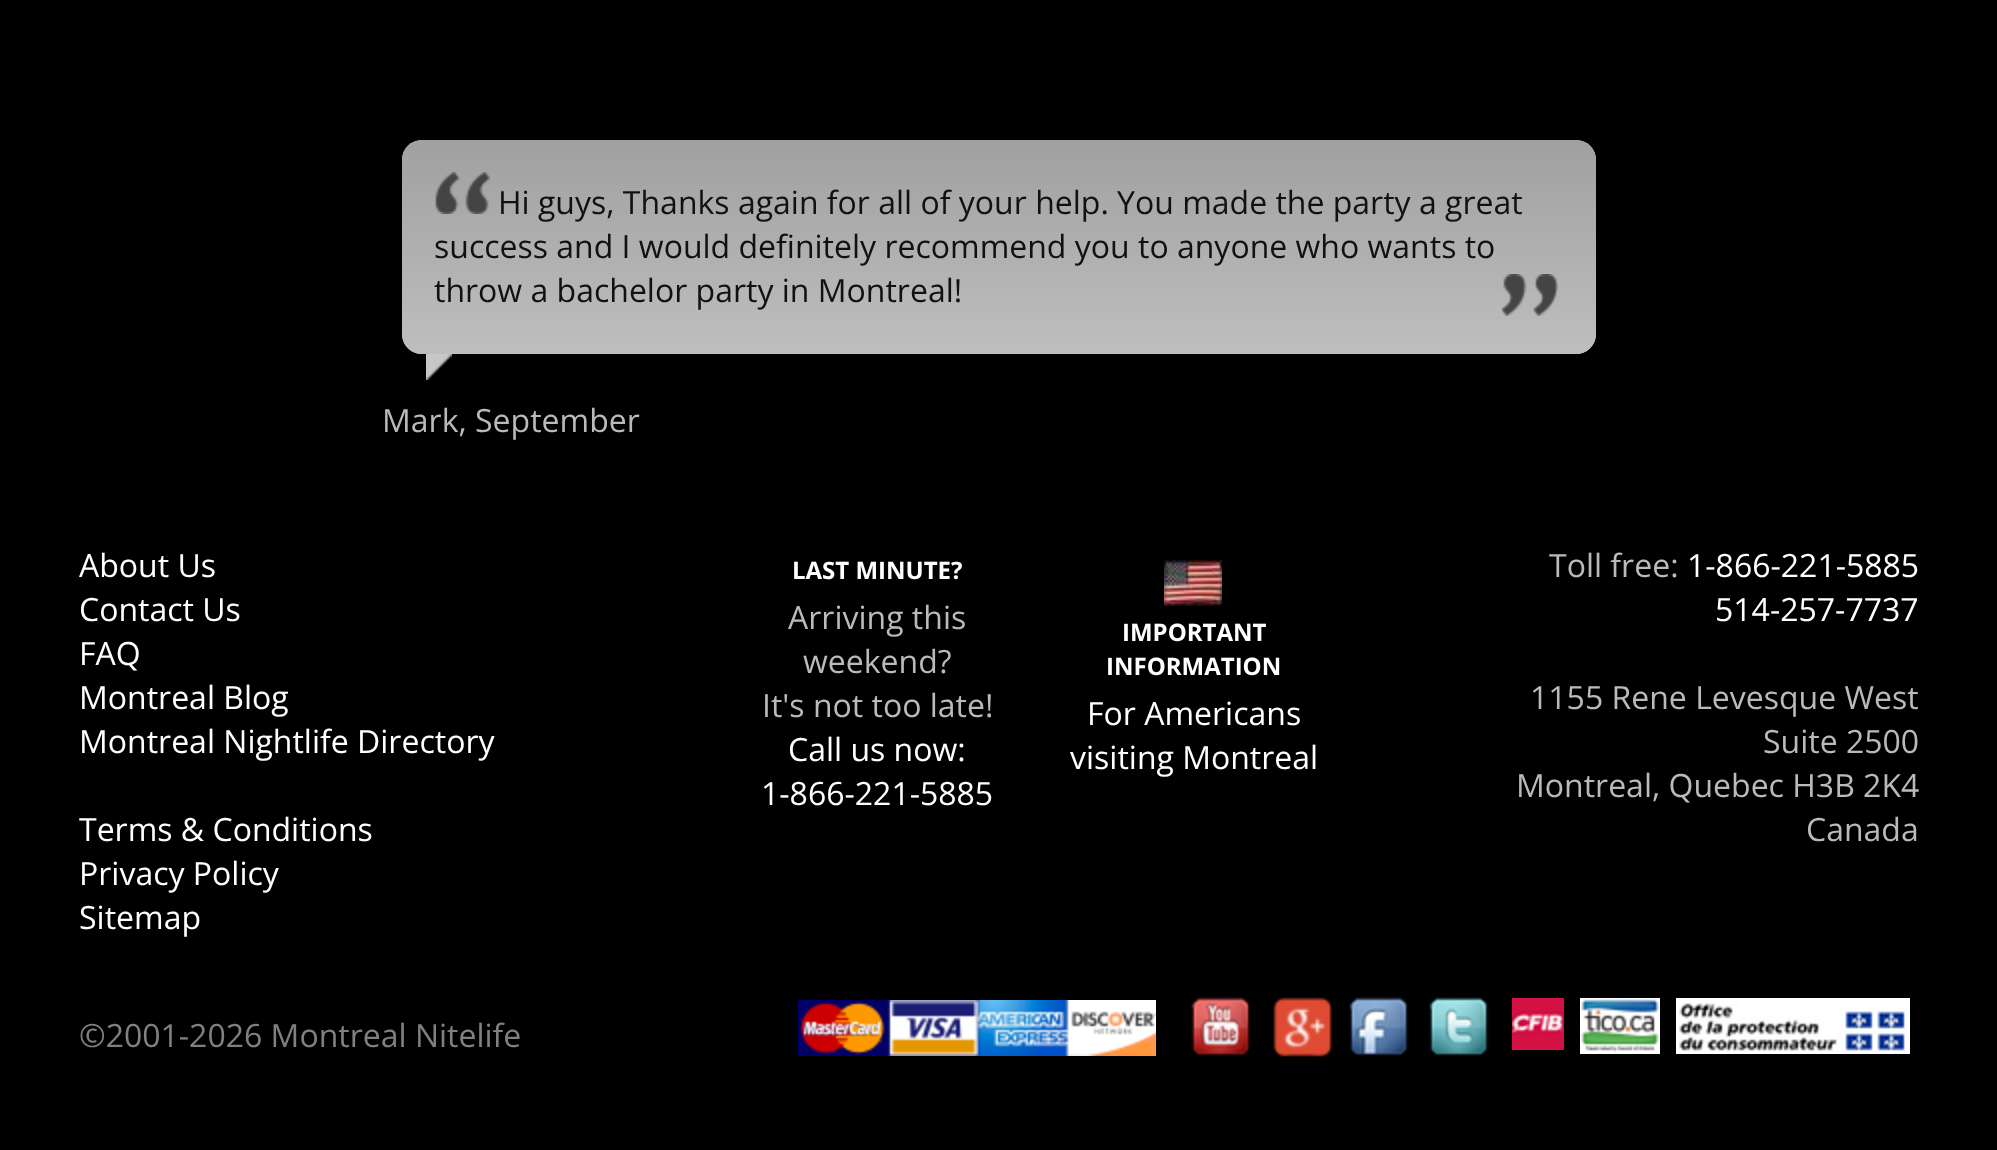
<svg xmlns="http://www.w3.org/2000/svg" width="1997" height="1150">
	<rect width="100%" height="100%" fill="#000000" />
	<rect x="402" y="140" width="1194" height="214" rx="20" fill="#CACACA" />
	<image x="402" y="140" width="1194" height="214" href="assets/img1.png" />
	<image x="435" y="172" width="55" height="42" href="assets/img2.png" />
	<g font-family="Open Sans" font-size="32" fill="#111111">
		<text x="498" y="214">Hi guys, Thanks again for all of your help. You made the party a great</text>
		<text x="434" y="258">success and I would definitely recommend you to anyone who wants to</text>
		<text x="434" y="302">throw a bachelor party in Montreal!</text>
	</g>
	<image x="1502" y="274" width="56" height="42" href="assets/img3.png" />
	<image x="426" y="354" width="26" height="26" href="assets/img4.png" />
	<text x="382" y="432" font-family="Open Sans" font-size="32" fill="#BABABA">Mark, September</text>
	<g font-family="Open Sans" font-size="32" fill="#FFFFFF">
		<text x="79" y="577">About Us</text>
		<text x="79" y="621">Contact Us</text>
		<text x="79" y="665">FAQ</text>
		<text x="79" y="709">Montreal Blog</text>
		<text x="79" y="753">Montreal Nightlife Directory</text>
		<text x="79" y="841">Terms &amp; Conditions</text>
		<text x="79" y="885">Privacy Policy</text>
		<text x="79" y="929">Sitemap</text>
	</g>
	<text x="792" y="579" font-family="Open Sans" font-size="24" font-weight="700" fill="#FFFFFF">LAST MINUTE?</text>
	<g font-family="Open Sans" font-size="32" fill="#BABABA">
		<text x="788" y="629">Arriving this</text>
		<text x="803" y="673">weekend?</text>
		<text x="762" y="717">It's not too late!</text>
	</g>
	<g font-family="Open Sans" font-size="32" fill="#FFFFFF">
		<text x="788" y="761">Call us now:</text>
		<text x="761" y="805">1-866-221-5885</text>
	</g>
	<image x="1164" y="560" width="58" height="46" href="assets/img5.png" />
	<g font-family="Open Sans" font-size="24" font-weight="700" fill="#FFFFFF">
		<text x="1122" y="641">IMPORTANT</text>
		<text x="1106" y="675">INFORMATION</text>
	</g>
	<g font-family="Open Sans" font-size="32" fill="#FFFFFF">
		<text x="1087" y="725">For Americans</text>
		<text x="1070" y="769">visiting Montreal</text>
	</g>
	<text x="1549" y="577" font-family="Open Sans" font-size="32" fill="#BABABA">Toll free:</text>
	<g font-family="Open Sans" font-size="32" fill="#FFFFFF">
		<text x="1687" y="577">1-866-221-5885</text>
		<text x="1715" y="621">514-257-7737</text>
	</g>
	<g font-family="Open Sans" font-size="32" fill="#BABABA">
		<text x="1530" y="709">1155 Rene Levesque West</text>
		<text x="1763" y="753">Suite 2500</text>
		<text x="1516" y="797">Montreal, Quebec H3B 2K4</text>
		<text x="1806" y="841">Canada</text>
	</g>
	<text x="79" y="1047" font-family="Open Sans" font-size="32" fill="#808080">©2001-2026 Montreal Nitelife</text>
	<image x="798" y="1000" width="358" height="56" href="assets/img6.png" />
	<image x="1191" y="997" width="60" height="60" href="assets/img7.png" />
	<image x="1273" y="997" width="60" height="60" href="assets/img8.png" />
	<image x="1349" y="997" width="60" height="60" href="assets/img9.png" />
	<image x="1429" y="997" width="60" height="60" href="assets/img10.png" />
	<image x="1512" y="998" width="52" height="52" href="assets/img11.png" />
	<image x="1580" y="998" width="80" height="56" href="assets/img12.png" />
	<image x="1676" y="998" width="234" height="56" href="assets/img13.png" />
</svg>
